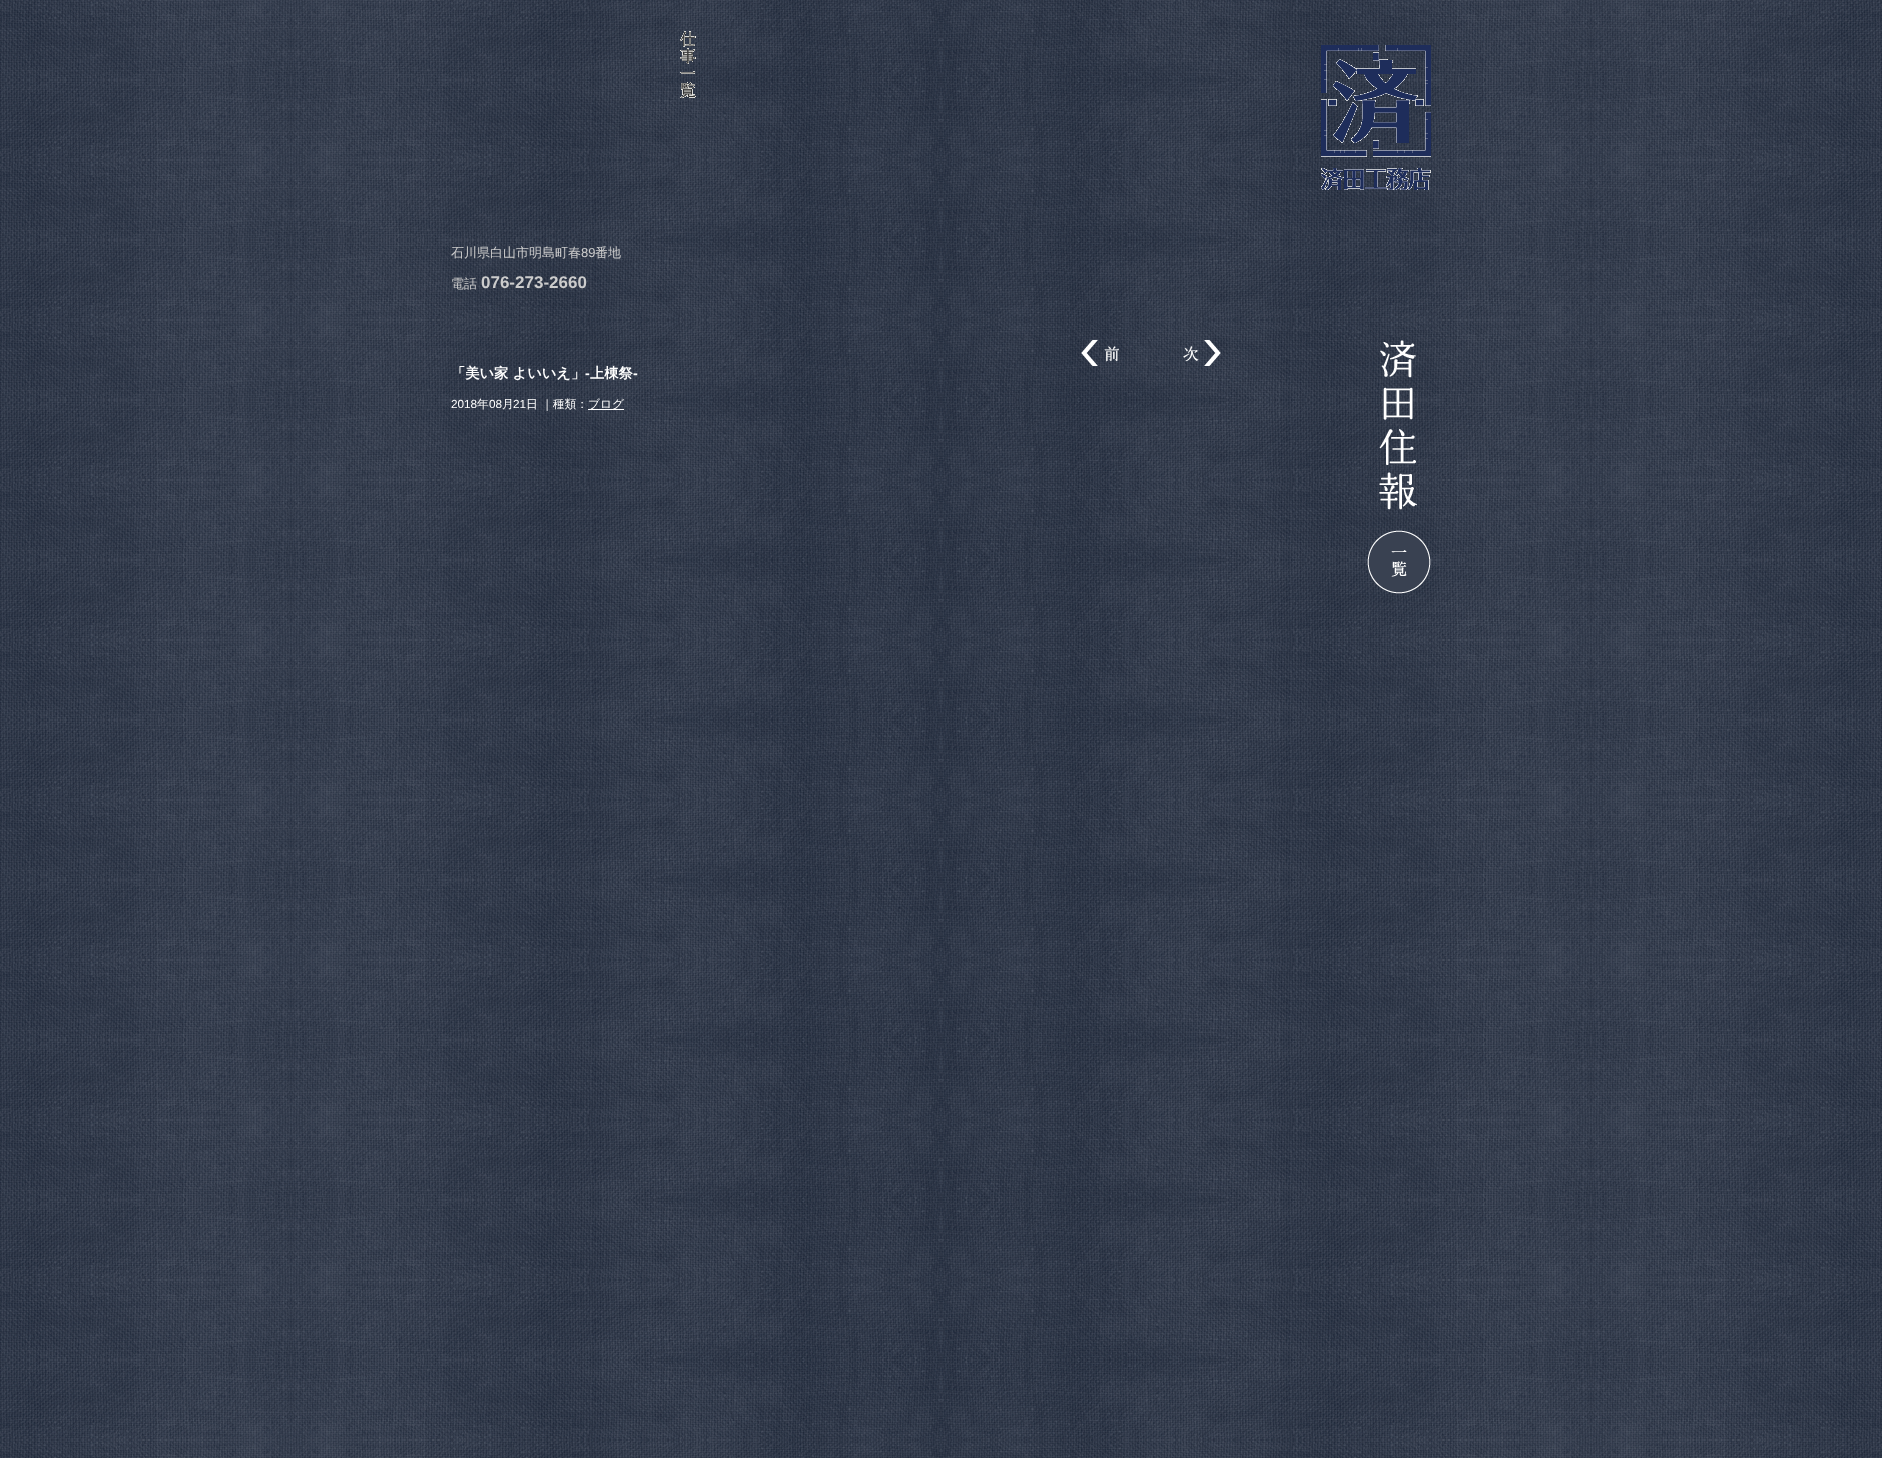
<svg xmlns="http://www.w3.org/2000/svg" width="1882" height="1458">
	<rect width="100%" height="100%" fill="#FFFFFF" />
	<image x="0" y="0" width="1882" height="1458" href="assets/img1.png" />
	<image x="680" y="31" width="16" height="67" href="assets/img2.png" />
	<image x="1321" y="45" width="110" height="145" href="assets/img3.png" />
	<text x="451" y="257" font-family="WenQuanYi Zen Hei" font-size="13" font-weight="500" fill="#CCCCCC">石川県白山市明島町春</text>
	<text x="581" y="257" font-family="Liberation Sans" font-size="13" fill="#CCCCCC">89</text>
	<g font-family="WenQuanYi Zen Hei" font-size="13" font-weight="500" fill="#CCCCCC">
		<text x="595" y="257">番地</text>
		<text x="451" y="288">電話</text>
	</g>
	<text x="481" y="288" font-family="Liberation Sans" font-size="17" font-weight="700" fill="#CCCCCC">076-273-2660</text>
	<image x="1081" y="340" width="38" height="26" href="assets/img4.png" />
	<image x="1183" y="340" width="38" height="26" href="assets/img5.png" />
	<text x="451" y="378" font-family="WenQuanYi Zen Hei" font-size="14.25" font-weight="700" fill="#FFFFFF">「美い家 よいいえ」</text>
	<text x="585" y="378" font-family="Liberation Sans" font-size="14.25" font-weight="700" fill="#FFFFFF">-</text>
	<text x="590" y="378" font-family="WenQuanYi Zen Hei" font-size="14.25" font-weight="700" fill="#FFFFFF">上棟祭</text>
	<text x="633" y="378" font-family="Liberation Sans" font-size="14.25" font-weight="700" fill="#FFFFFF">-</text>
	<text x="451" y="408" font-family="Liberation Sans" font-size="11.75" fill="#FFFFFF">2018</text>
	<text x="477" y="408" font-family="WenQuanYi Zen Hei" font-size="11.75" font-weight="500" fill="#FFFFFF">年</text>
	<text x="489" y="408" font-family="Liberation Sans" font-size="11.75" fill="#FFFFFF">08</text>
	<text x="502" y="408" font-family="WenQuanYi Zen Hei" font-size="11.75" font-weight="500" fill="#FFFFFF">月</text>
	<text x="513" y="408" font-family="Liberation Sans" font-size="11.75" fill="#FFFFFF">21</text>
	<text x="526" y="408" font-family="WenQuanYi Zen Hei" font-size="11.75" font-weight="500" fill="#FFFFFF">日 ｜種類：</text>
	<rect x="588" y="409" width="36" height="1" fill="#FFFFFF" />
	<text x="588" y="408" font-family="WenQuanYi Zen Hei" font-size="11.75" font-weight="500" fill="#FFFFFF">ブログ</text>
	<image x="1379" y="340" width="38" height="170" href="assets/img6.png" />
	<image x="1367" y="530" width="64" height="64" href="assets/img7.png" />
</svg>
